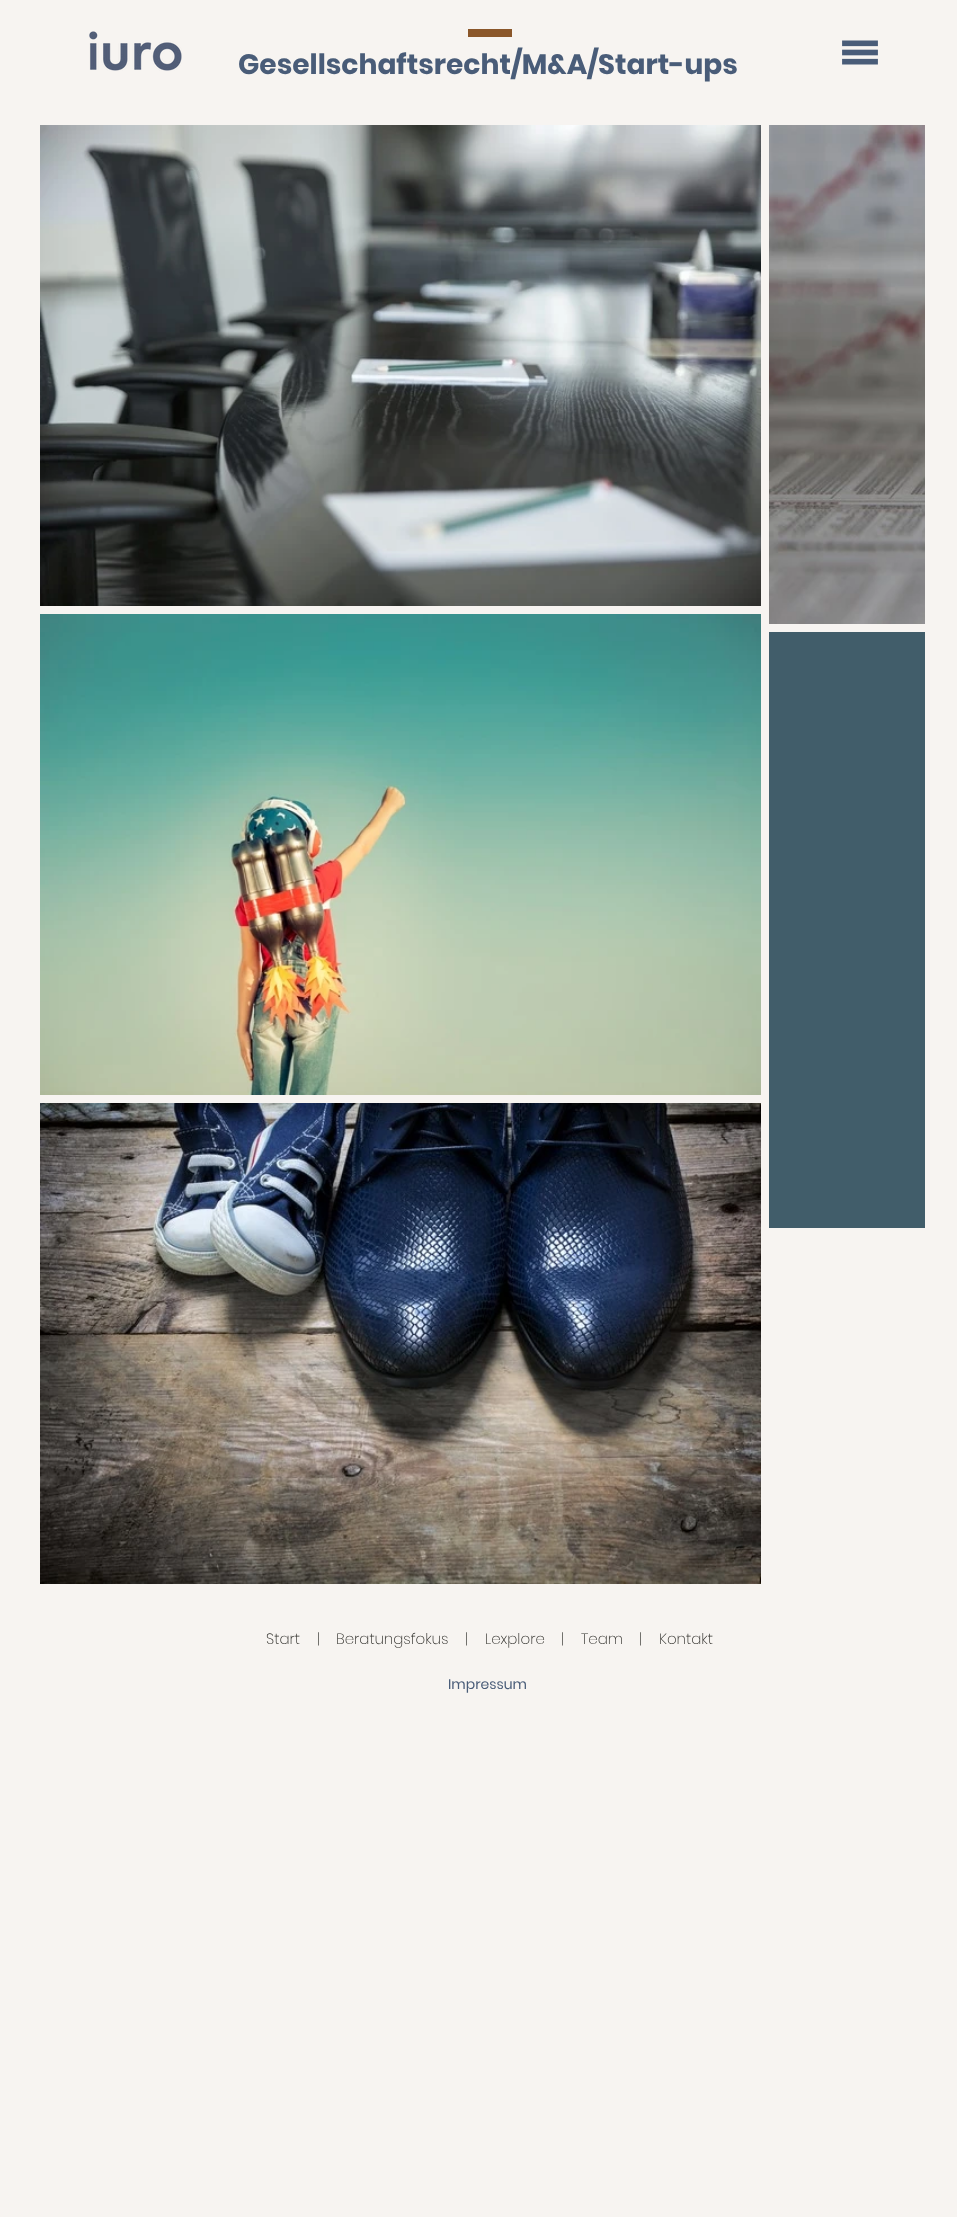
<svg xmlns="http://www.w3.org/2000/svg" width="957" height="2217">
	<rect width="100%" height="100%" fill="#F7F4F1" />
	<rect x="468" y="29" width="44" height="8" fill="#8B572A" />
	<image x="89" y="31" width="93" height="40" href="assets/img1.png" />
	<image x="842" y="40" width="36" height="25" href="assets/img2.png" />
	<text x="238" y="74" font-family="Poppins" font-size="28" font-weight="700" fill="#495C78">Gesellschaftsrecht/M&amp;A/Start-ups</text>
	<image x="40" y="125" width="721" height="481" href="assets/img3.png" />
	<image x="769" y="125" width="156" height="499" href="assets/img4.png" />
	<image x="40" y="614" width="721" height="481" href="assets/img5.png" />
	<rect x="769" y="632" width="156" height="596" fill="#415D6A" />
	<image x="40" y="1103" width="721" height="481" href="assets/img6.png" />
	<g font-family="Poppins" font-size="15" font-weight="200" fill="#31302C">
		<text x="266" y="1644">Start</text>
		<text x="317" y="1644">|</text>
		<text x="336" y="1644">Beratungsfokus</text>
		<text x="465" y="1644">|</text>
		<text x="485" y="1644">Lexplore</text>
		<text x="561" y="1644">|</text>
		<text x="581" y="1644">Team</text>
		<text x="639" y="1644">|</text>
		<text x="659" y="1644">Kontakt</text>
	</g>
	<text x="448" y="1689" font-family="Poppins" font-size="14" fill="#495C78">Impressum</text>
</svg>
